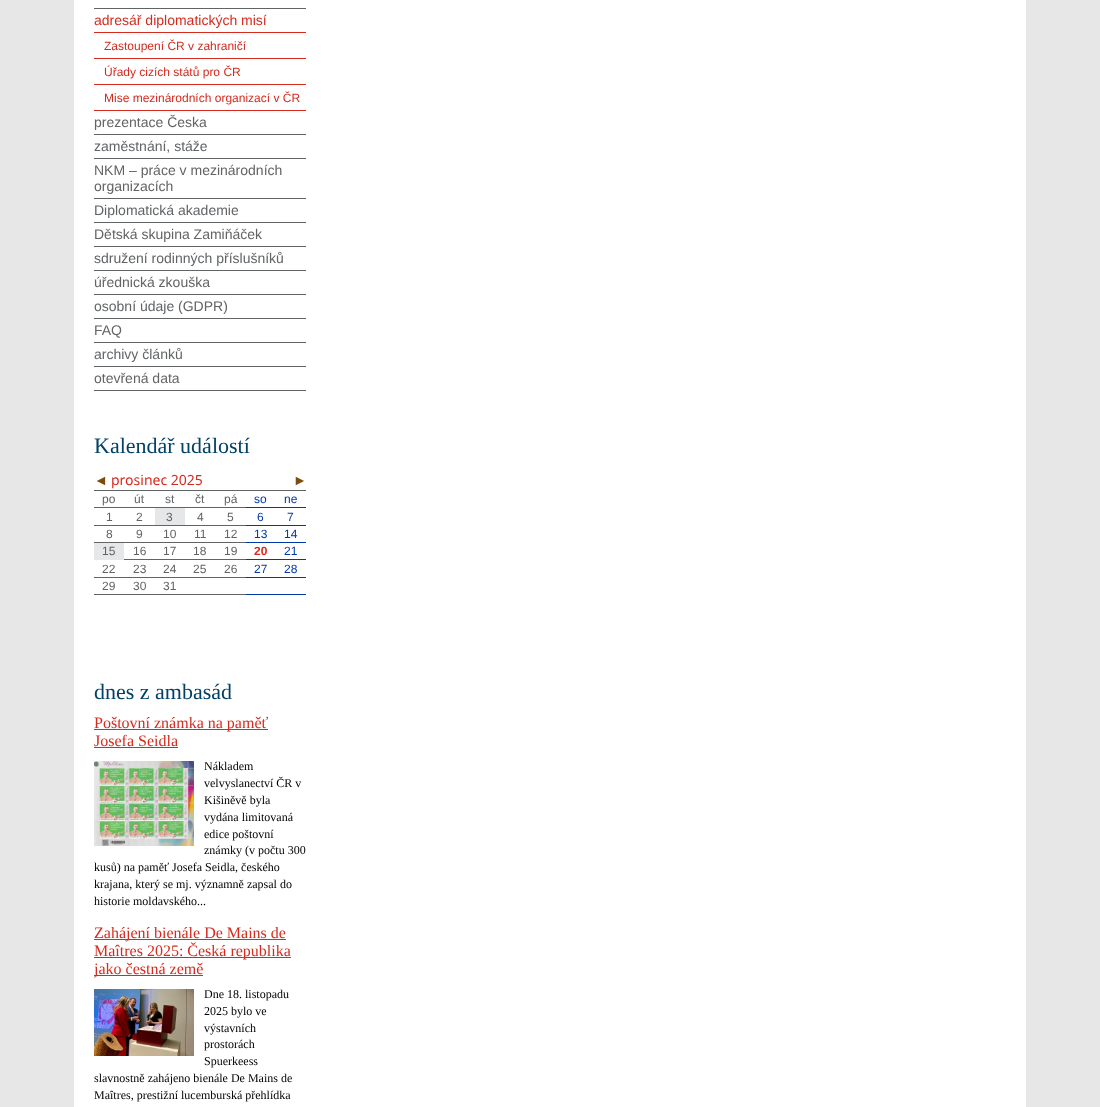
<svg xmlns="http://www.w3.org/2000/svg" width="1100" height="1107">
	<defs>
		<clipPath id="clip1"><rect x="94" y="679" width="212" height="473" /></clipPath>
	</defs>
	<rect width="100%" height="100%" fill="#E7E7E7" />
	<rect x="74" y="0" width="952" height="1107" fill="#FFFFFF" />
	<rect x="94" y="8" width="212" height="1" fill="#616365" />
	<rect x="94" y="32" width="212" height="1" fill="#D52B1E" />
	<text x="94" y="25" font-family="Liberation Sans" font-size="14" fill="#D52B1E">adresář diplomatických misí</text>
	<rect x="94" y="58" width="212" height="1" fill="#D52B1E" />
	<text x="104" y="50" font-family="Liberation Sans" font-size="12" fill="#D52B1E">Zastoupení ČR v zahraničí</text>
	<rect x="94" y="84" width="212" height="1" fill="#D52B1E" />
	<text x="104" y="76" font-family="Liberation Sans" font-size="12" fill="#D52B1E">Úřady cizích států pro ČR</text>
	<rect x="94" y="110" width="212" height="1" fill="#D52B1E" />
	<text x="104" y="102" font-family="Liberation Sans" font-size="12" fill="#D52B1E">Mise mezinárodních organizací v ČR</text>
	<rect x="94" y="134" width="212" height="1" fill="#616365" />
	<text x="94" y="127" font-family="Liberation Sans" font-size="14" fill="#616365">prezentace Česka</text>
	<rect x="94" y="158" width="212" height="1" fill="#616365" />
	<text x="94" y="151" font-family="Liberation Sans" font-size="14" fill="#616365">zaměstnání, stáže</text>
	<rect x="94" y="198" width="212" height="1" fill="#616365" />
	<g font-family="Liberation Sans" font-size="14" fill="#616365">
		<text x="94" y="175">NKM – práce v mezinárodních</text>
		<text x="94" y="191">organizacích</text>
	</g>
	<rect x="94" y="222" width="212" height="1" fill="#616365" />
	<text x="94" y="215" font-family="Liberation Sans" font-size="14" fill="#616365">Diplomatická akademie</text>
	<rect x="94" y="246" width="212" height="1" fill="#616365" />
	<text x="94" y="239" font-family="Liberation Sans" font-size="14" fill="#616365">Dětská skupina Zamiňáček</text>
	<rect x="94" y="270" width="212" height="1" fill="#616365" />
	<text x="94" y="263" font-family="Liberation Sans" font-size="14" fill="#616365">sdružení rodinných příslušníků</text>
	<rect x="94" y="294" width="212" height="1" fill="#616365" />
	<text x="94" y="287" font-family="Liberation Sans" font-size="14" fill="#616365">úřednická zkouška</text>
	<rect x="94" y="318" width="212" height="1" fill="#616365" />
	<text x="94" y="311" font-family="Liberation Sans" font-size="14" fill="#616365">osobní údaje (GDPR)</text>
	<rect x="94" y="342" width="212" height="1" fill="#616365" />
	<text x="94" y="335" font-family="Liberation Sans" font-size="14" fill="#616365">FAQ</text>
	<rect x="94" y="366" width="212" height="1" fill="#616365" />
	<text x="94" y="359" font-family="Liberation Sans" font-size="14" fill="#616365">archivy článků</text>
	<rect x="94" y="390" width="212" height="1" fill="#616365" />
	<text x="94" y="383" font-family="Liberation Sans" font-size="14" fill="#616365">otevřená data</text>
	<text x="94" y="453" font-family="Liberation Serif" font-size="22" fill="#004165">Kalendář událostí</text>
	<rect x="94" y="490" width="212" height="1" fill="#616365" />
	<text x="94" y="485" font-family="Liberation Serif" font-size="14" fill="#7D4B0E">◄</text>
	<text x="111" y="485" font-family="Noto Sans" font-size="14" fill="#D52B1E">prosinec 2025</text>
	<text x="293" y="485" font-family="Liberation Serif" font-size="14" fill="#7D4B0E">►</text>
	<g font-family="Liberation Sans" font-size="12" fill="#616365">
		<text x="102" y="503">po</text>
		<text x="134" y="503">út</text>
		<text x="165" y="503">st</text>
		<text x="195" y="503">čt</text>
	</g>
	<rect x="245" y="507" width="61" height="1" fill="#0039A6" />
	<rect x="94" y="507" width="152" height="1" fill="#616365" />
	<text x="224" y="503" font-family="Liberation Sans" font-size="12" fill="#616365">pá</text>
	<g font-family="Liberation Sans" font-size="12" fill="#0039A6">
		<text x="254" y="503">so</text>
		<text x="284" y="503">ne</text>
	</g>
	<g font-family="Liberation Sans" font-size="12" fill="#616365">
		<text x="106" y="521">1</text>
		<text x="136" y="521">2</text>
	</g>
	<rect x="155" y="508" width="30" height="17" fill="#E5E7E9" />
	<g font-family="Liberation Sans" font-size="12" fill="#616365">
		<text x="166" y="521">3</text>
		<text x="197" y="521">4</text>
	</g>
	<rect x="245" y="525" width="61" height="1" fill="#0039A6" />
	<rect x="94" y="525" width="152" height="1" fill="#616365" />
	<text x="227" y="521" font-family="Liberation Sans" font-size="12" fill="#616365">5</text>
	<g font-family="Liberation Sans" font-size="12" fill="#0039A6">
		<text x="257" y="521">6</text>
		<text x="287" y="521">7</text>
	</g>
	<g font-family="Liberation Sans" font-size="12" fill="#616365">
		<text x="106" y="538">8</text>
		<text x="136" y="538">9</text>
		<text x="163" y="538">10</text>
		<text x="194" y="538">11</text>
	</g>
	<rect x="245" y="542" width="61" height="1" fill="#0039A6" />
	<rect x="94" y="542" width="152" height="1" fill="#616365" />
	<text x="224" y="538" font-family="Liberation Sans" font-size="12" fill="#616365">12</text>
	<g font-family="Liberation Sans" font-size="12" fill="#0039A6">
		<text x="254" y="538">13</text>
		<text x="284" y="538">14</text>
	</g>
	<rect x="94" y="543" width="30" height="17" fill="#E5E7E9" />
	<g font-family="Liberation Sans" font-size="12" fill="#616365">
		<text x="102" y="555">15</text>
		<text x="133" y="555">16</text>
		<text x="163" y="555">17</text>
		<text x="193" y="555">18</text>
	</g>
	<rect x="245" y="559" width="61" height="1" fill="#0039A6" />
	<rect x="124" y="559" width="122" height="1" fill="#616365" />
	<text x="224" y="555" font-family="Liberation Sans" font-size="12" fill="#616365">19</text>
	<text x="254" y="555" font-family="Liberation Sans" font-size="12" font-weight="700" fill="#D52B1E">20</text>
	<text x="284" y="555" font-family="Liberation Sans" font-size="12" fill="#0039A6">21</text>
	<g font-family="Liberation Sans" font-size="12" fill="#616365">
		<text x="102" y="573">22</text>
		<text x="133" y="573">23</text>
		<text x="163" y="573">24</text>
		<text x="193" y="573">25</text>
	</g>
	<rect x="245" y="577" width="61" height="1" fill="#0039A6" />
	<rect x="94" y="577" width="152" height="1" fill="#616365" />
	<text x="224" y="573" font-family="Liberation Sans" font-size="12" fill="#616365">26</text>
	<g font-family="Liberation Sans" font-size="12" fill="#0039A6">
		<text x="254" y="573">27</text>
		<text x="284" y="573">28</text>
	</g>
	<g font-family="Liberation Sans" font-size="12" fill="#616365">
		<text x="102" y="590">29</text>
		<text x="133" y="590">30</text>
		<text x="163" y="590">31</text>
	</g>
	<rect x="245" y="594" width="61" height="1" fill="#0039A6" />
	<rect x="94" y="594" width="152" height="1" fill="#616365" />
	<text x="94" y="699" font-family="Liberation Serif" font-size="22" fill="#004165">dnes z ambasád</text>
	<rect x="94" y="729" width="174" height="1" fill="#D52B1E" />
	<g font-family="Liberation Serif" font-size="16" fill="#D52B1E">
		<text x="94" y="728">Poštovní známka na paměť</text>
		<text x="94" y="746">Josefa Seidla</text>
	</g>
	<rect x="94" y="747" width="84" height="1" fill="#D52B1E" />
	<image x="94" y="761" width="100" height="85" href="assets/img1.png" />
	<g font-family="Liberation Serif" font-size="12" fill="#000000">
		<text x="204" y="770">Nákladem</text>
		<text x="204" y="787">velvyslanectví ČR v</text>
		<text x="204" y="804">Kišiněvě byla</text>
		<text x="204" y="821">vydána limitovaná</text>
		<text x="204" y="838">edice poštovní</text>
		<text x="204" y="854">známky (v počtu 300</text>
		<text x="94" y="871">kusů) na paměť Josefa Seidla, českého</text>
		<text x="94" y="888">krajana, který se mj. významně zapsal do</text>
		<text x="94" y="905">historie moldavského...</text>
	</g>
	<rect x="94" y="939" width="192" height="1" fill="#D52B1E" />
	<text x="94" y="938" font-family="Liberation Serif" font-size="16" fill="#D52B1E">Zahájení bienále De Mains de</text>
	<rect x="94" y="957" width="197" height="1" fill="#D52B1E" />
	<text x="94" y="956" font-family="Liberation Serif" font-size="16" fill="#D52B1E">Maîtres 2025: Česká republika</text>
	<rect x="94" y="975" width="109" height="1" fill="#D52B1E" />
	<g clip-path="url(#clip1)">
		<text x="94" y="974" font-family="Liberation Serif" font-size="16" fill="#D52B1E">jako čestná země</text>
	</g>
	<image x="94" y="989" width="100" height="67" href="assets/img2.png" />
	<g font-family="Liberation Serif" font-size="12" fill="#000000">
		<text x="204" y="998">Dne 18. listopadu</text>
		<text x="204" y="1015">2025 bylo ve</text>
		<text x="204" y="1032">výstavních</text>
		<text x="204" y="1048">prostorách</text>
		<text x="204" y="1065">Spuerkeess</text>
		<text x="94" y="1082">slavnostně zahájeno bienále De Mains de</text>
		<text x="94" y="1099">Maîtres, prestižní lucemburská přehlídka</text>
	</g>
</svg>
